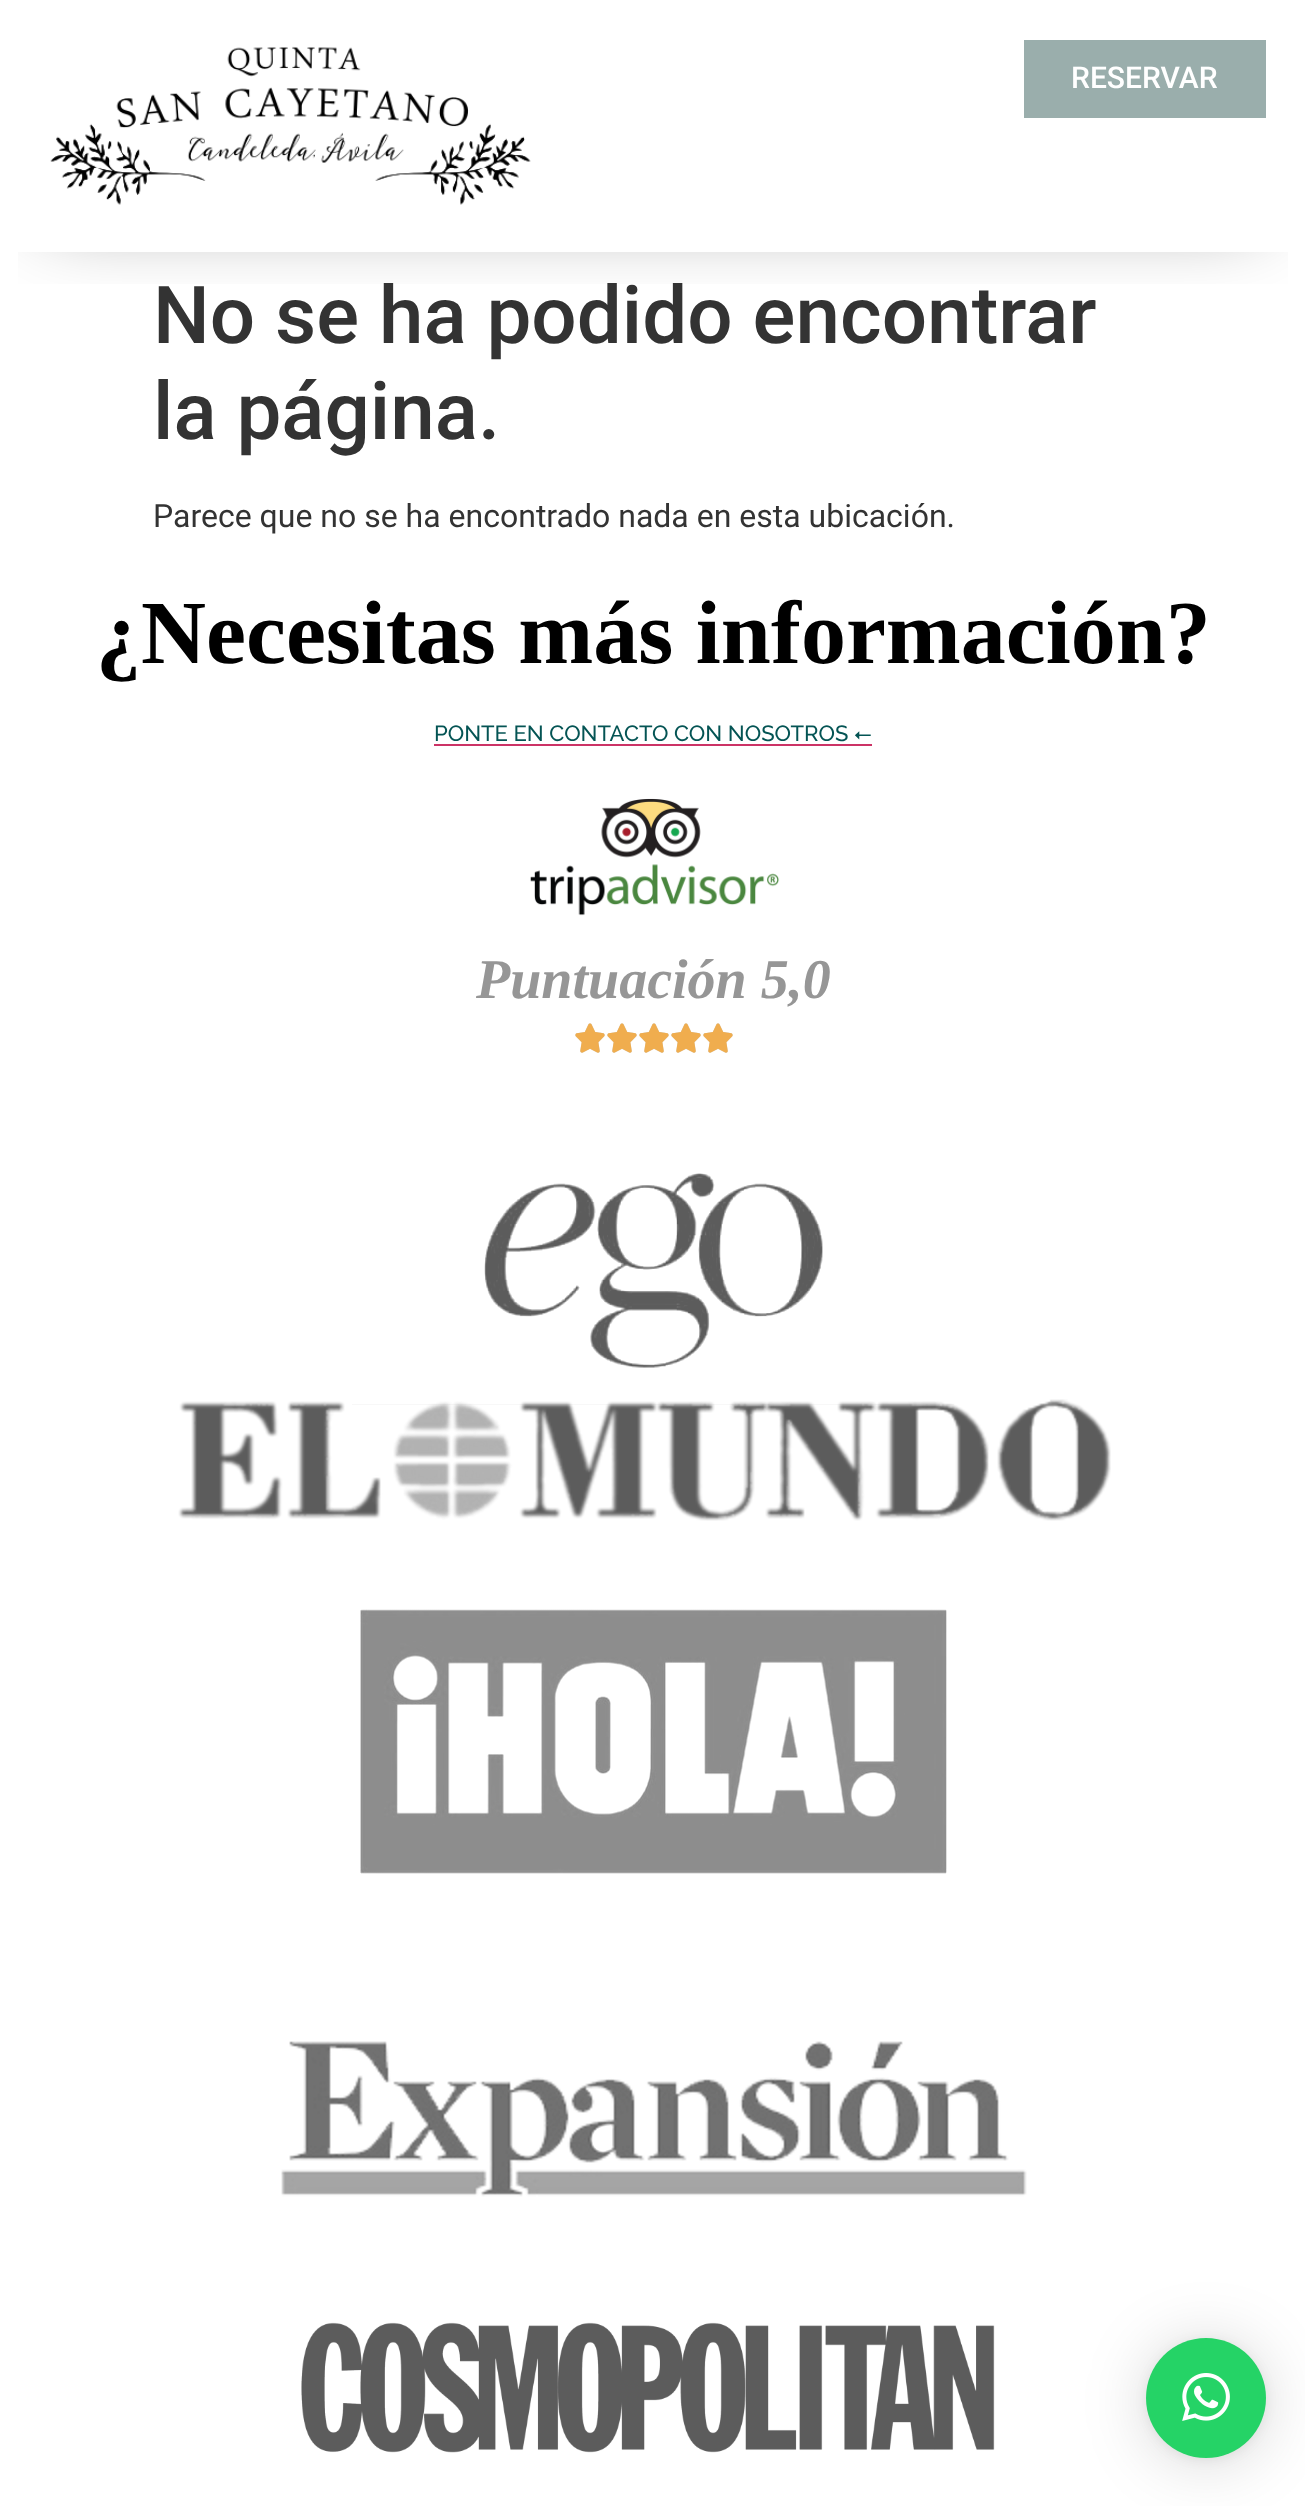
<svg xmlns="http://www.w3.org/2000/svg" width="1305" height="2506">
	<defs>
		<clipPath id="clip1"><rect x="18" y="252" width="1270" height="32" /></clipPath>
	</defs>
	<rect width="100%" height="100%" fill="#FFFFFF" />
	<g clip-path="url(#clip1)">
		<rect x="46" y="54" width="1214" height="160" fill="#000000" fill-opacity="0.5" filter="blur(40px)" />
	</g>
	<image x="50" y="46" width="481" height="159" href="assets/img1.png" />
	<rect x="1024" y="40" width="242" height="78" fill="#9AAEAC" />
	<text x="1071" y="88" font-family="Roboto" font-size="30" font-weight="500" fill="#FFFFFF">RESERVAR</text>
	<g font-family="Roboto" font-size="80" font-weight="500" fill="#333333">
		<text x="153" y="343">No se ha podido encontrar</text>
		<text x="153" y="439">la página.</text>
	</g>
	<text x="153" y="527" font-family="Roboto" font-size="32" fill="#333333">Parece que no se ha encontrado nada en esta ubicación.</text>
	<text x="96" y="663" font-family="Liberation Serif" font-size="90" font-weight="700" fill="#000000">¿Necesitas más información?</text>
	<text x="434" y="741" font-family="Raleway" font-size="22" font-weight="500" fill="#045454">PONTE EN CONTACTO CON NOSOTROS</text>
	<text x="854" y="741" font-family="FreeSans" font-size="22" fill="#045454">⭠</text>
	<rect x="434" y="744" width="438" height="2" fill="#CC3366" />
	<image x="530" y="798" width="250" height="118" href="assets/img2.png" />
	<text x="476" y="998" font-family="Liberation Serif" font-size="56" font-weight="700" font-style="italic" fill="#969696">Puntuación 5,0</text>
	<image x="575" y="1023" width="30" height="30" href="assets/img3.png" />
	<image x="575" y="1023" width="30" height="30" href="assets/img4.png" />
	<image x="607" y="1023" width="30" height="30" href="assets/img3.png" />
	<image x="607" y="1023" width="30" height="30" href="assets/img4.png" />
	<image x="639" y="1023" width="30" height="30" href="assets/img3.png" />
	<image x="639" y="1023" width="30" height="30" href="assets/img4.png" />
	<image x="671" y="1023" width="30" height="30" href="assets/img3.png" />
	<image x="671" y="1023" width="30" height="30" href="assets/img4.png" />
	<image x="703" y="1023" width="30" height="30" href="assets/img3.png" />
	<image x="703" y="1023" width="30" height="30" href="assets/img4.png" />
	<image x="352" y="1173" width="602" height="232" href="assets/img5.png" />
	<image x="178" y="1399" width="933" height="122" href="assets/img6.png" />
	<image x="360" y="1609" width="587" height="265" href="assets/img7.png" />
	<image x="281" y="2041" width="746" height="156" href="assets/img8.png" />
	<image x="301" y="2322" width="694" height="131" href="assets/img9.png" />
	<rect x="1146" y="2342" width="120" height="120" rx="60" fill="#000000" fill-opacity="0.16" filter="blur(32px)" />
	<rect x="1146" y="2340" width="120" height="120" rx="60" fill="#000000" fill-opacity="0.06" filter="blur(6px)" />
	<circle cx="1206" cy="2398" r="60" fill="#25D366" />
	<image x="1182" y="2373" width="48" height="48" href="assets/img10.png" />
</svg>
